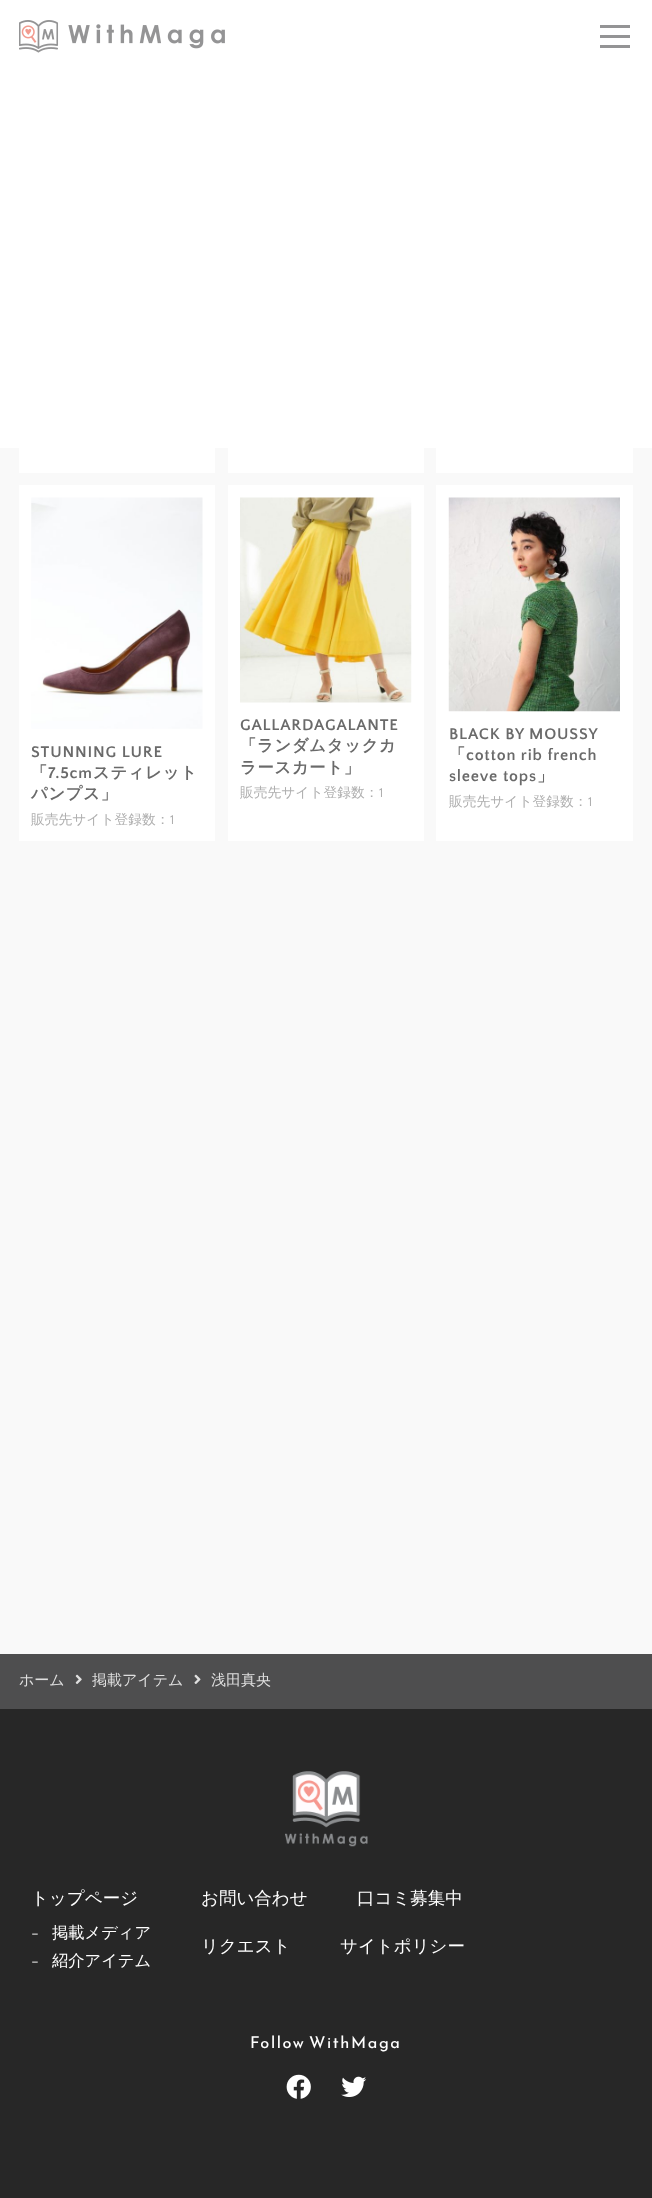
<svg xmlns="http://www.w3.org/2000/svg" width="652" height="2198">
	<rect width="100%" height="100%" fill="#F9F9F9" />
	<rect x="0" y="0" width="652" height="448" fill="#FFFFFF" />
	<image x="19" y="20" width="206" height="33" href="assets/img1.png" />
	<rect x="600" y="25" width="30" height="3" fill="#949495" />
	<rect x="600" y="35" width="30" height="3" fill="#949495" />
	<rect x="600" y="45" width="30" height="3" fill="#949495" />
	<rect x="19" y="448" width="196" height="25" fill="#FFFFFF" />
	<rect x="228" y="448" width="196" height="25" fill="#FFFFFF" />
	<rect x="436" y="448" width="197" height="25" fill="#FFFFFF" />
	<rect x="19" y="485" width="196" height="356" fill="#FFFFFF" />
	<image x="31" y="497" width="172" height="232" href="assets/img2.png" />
	<text x="31" y="757" font-family="Quattrocento Sans" font-size="16.25" font-weight="700" letter-spacing="0.8" fill="#6A6A6A">STUNNING LURE</text>
	<text x="31" y="778" font-family="WenQuanYi Zen Hei" font-size="16.25" font-weight="700" letter-spacing="0.8" fill="#6A6A6A">「</text>
	<text x="48" y="778" font-family="Quattrocento Sans" font-size="16.25" font-weight="700" letter-spacing="0.8" fill="#6A6A6A">7.5cm</text>
	<g font-family="WenQuanYi Zen Hei" font-size="16.25" font-weight="700" letter-spacing="0.8" fill="#6A6A6A">
		<text x="93" y="778">スティレット</text>
		<text x="31" y="799">パンプス」</text>
	</g>
	<text x="31" y="824" font-family="WenQuanYi Zen Hei" font-size="13.75" font-weight="500" fill="#AFAFAF">販売先サイト登録数：</text>
	<text x="170" y="824" font-family="Quattrocento Sans" font-size="13.75" fill="#AFAFAF">1</text>
	<rect x="228" y="485" width="196" height="356" fill="#FFFFFF" />
	<image x="240" y="497" width="172" height="206" href="assets/img3.png" />
	<text x="240" y="730" font-family="Quattrocento Sans" font-size="16.25" font-weight="700" letter-spacing="0.8" fill="#6A6A6A">GALLARDAGALANTE</text>
	<g font-family="WenQuanYi Zen Hei" font-size="16.25" font-weight="700" letter-spacing="0.8" fill="#6A6A6A">
		<text x="240" y="751">「ランダムタックカ</text>
		<text x="240" y="773">ラースカート」</text>
	</g>
	<text x="240" y="797" font-family="WenQuanYi Zen Hei" font-size="13.75" font-weight="500" fill="#AFAFAF">販売先サイト登録数：</text>
	<text x="379" y="797" font-family="Quattrocento Sans" font-size="13.75" fill="#AFAFAF">1</text>
	<rect x="436" y="485" width="197" height="356" fill="#FFFFFF" />
	<image x="448" y="497" width="172" height="215" href="assets/img4.png" />
	<text x="449" y="739" font-family="Quattrocento Sans" font-size="16.25" font-weight="700" letter-spacing="0.8" fill="#6A6A6A">BLACK BY MOUSSY</text>
	<text x="449" y="760" font-family="WenQuanYi Zen Hei" font-size="16.25" font-weight="700" letter-spacing="0.8" fill="#6A6A6A">「</text>
	<g font-family="Quattrocento Sans" font-size="16.25" font-weight="700" letter-spacing="0.8" fill="#6A6A6A">
		<text x="466" y="760">cotton rib french</text>
		<text x="449" y="781">sleeve tops</text>
	</g>
	<text x="537" y="781" font-family="WenQuanYi Zen Hei" font-size="16.25" font-weight="700" letter-spacing="0.8" fill="#6A6A6A">」</text>
	<text x="449" y="806" font-family="WenQuanYi Zen Hei" font-size="13.75" font-weight="500" fill="#AFAFAF">販売先サイト登録数：</text>
	<text x="588" y="806" font-family="Quattrocento Sans" font-size="13.75" fill="#AFAFAF">1</text>
	<rect x="0" y="1654" width="652" height="55" fill="#4E4E4F" />
	<text x="19" y="1685" font-family="WenQuanYi Zen Hei" font-size="15" font-weight="500" fill="#DFDFDF">ホーム</text>
	<image x="75" y="1674" width="7" height="10" href="assets/img5.png" />
	<text x="92" y="1685" font-family="WenQuanYi Zen Hei" font-size="15" font-weight="500" fill="#DFDFDF">掲載アイテム</text>
	<image x="194" y="1674" width="7" height="10" href="assets/img6.png" />
	<text x="211" y="1685" font-family="WenQuanYi Zen Hei" font-size="15" font-weight="500" fill="#DFDFDF">浅田真央</text>
	<rect x="0" y="1709" width="652" height="489" fill="#272727" />
	<image x="285" y="1771" width="83" height="76" href="assets/img7.png" />
	<text x="31" y="1904" font-family="WenQuanYi Zen Hei" font-size="17.5" font-weight="500" fill="#FFFFFF">トップページ</text>
	<text x="31" y="1938" font-family="Quattrocento Sans" font-size="16.25" fill="#FFFFFF">-</text>
	<text x="52" y="1938" font-family="WenQuanYi Zen Hei" font-size="16.25" font-weight="500" fill="#FFFFFF">掲載メディア</text>
	<text x="31" y="1966" font-family="Quattrocento Sans" font-size="16.25" fill="#FFFFFF">-</text>
	<text x="52" y="1966" font-family="WenQuanYi Zen Hei" font-size="16.25" font-weight="500" fill="#FFFFFF">紹介アイテム</text>
	<g font-family="WenQuanYi Zen Hei" font-size="17.5" font-weight="500" fill="#FFFFFF">
		<text x="201" y="1904">お問い合わせ</text>
		<text x="357" y="1904">口コミ募集中</text>
		<text x="201" y="1952">リクエスト</text>
		<text x="340" y="1952">サイトポリシー</text>
	</g>
	<text x="250" y="2048" font-family="Reem Kufi" font-size="16.25" letter-spacing="1.6" fill="#FFFFFF">Follow WithMaga</text>
	<image x="286" y="2074" width="25" height="25" href="assets/img8.png" />
	<image x="341" y="2076" width="26" height="21" href="assets/img9.png" />
</svg>
